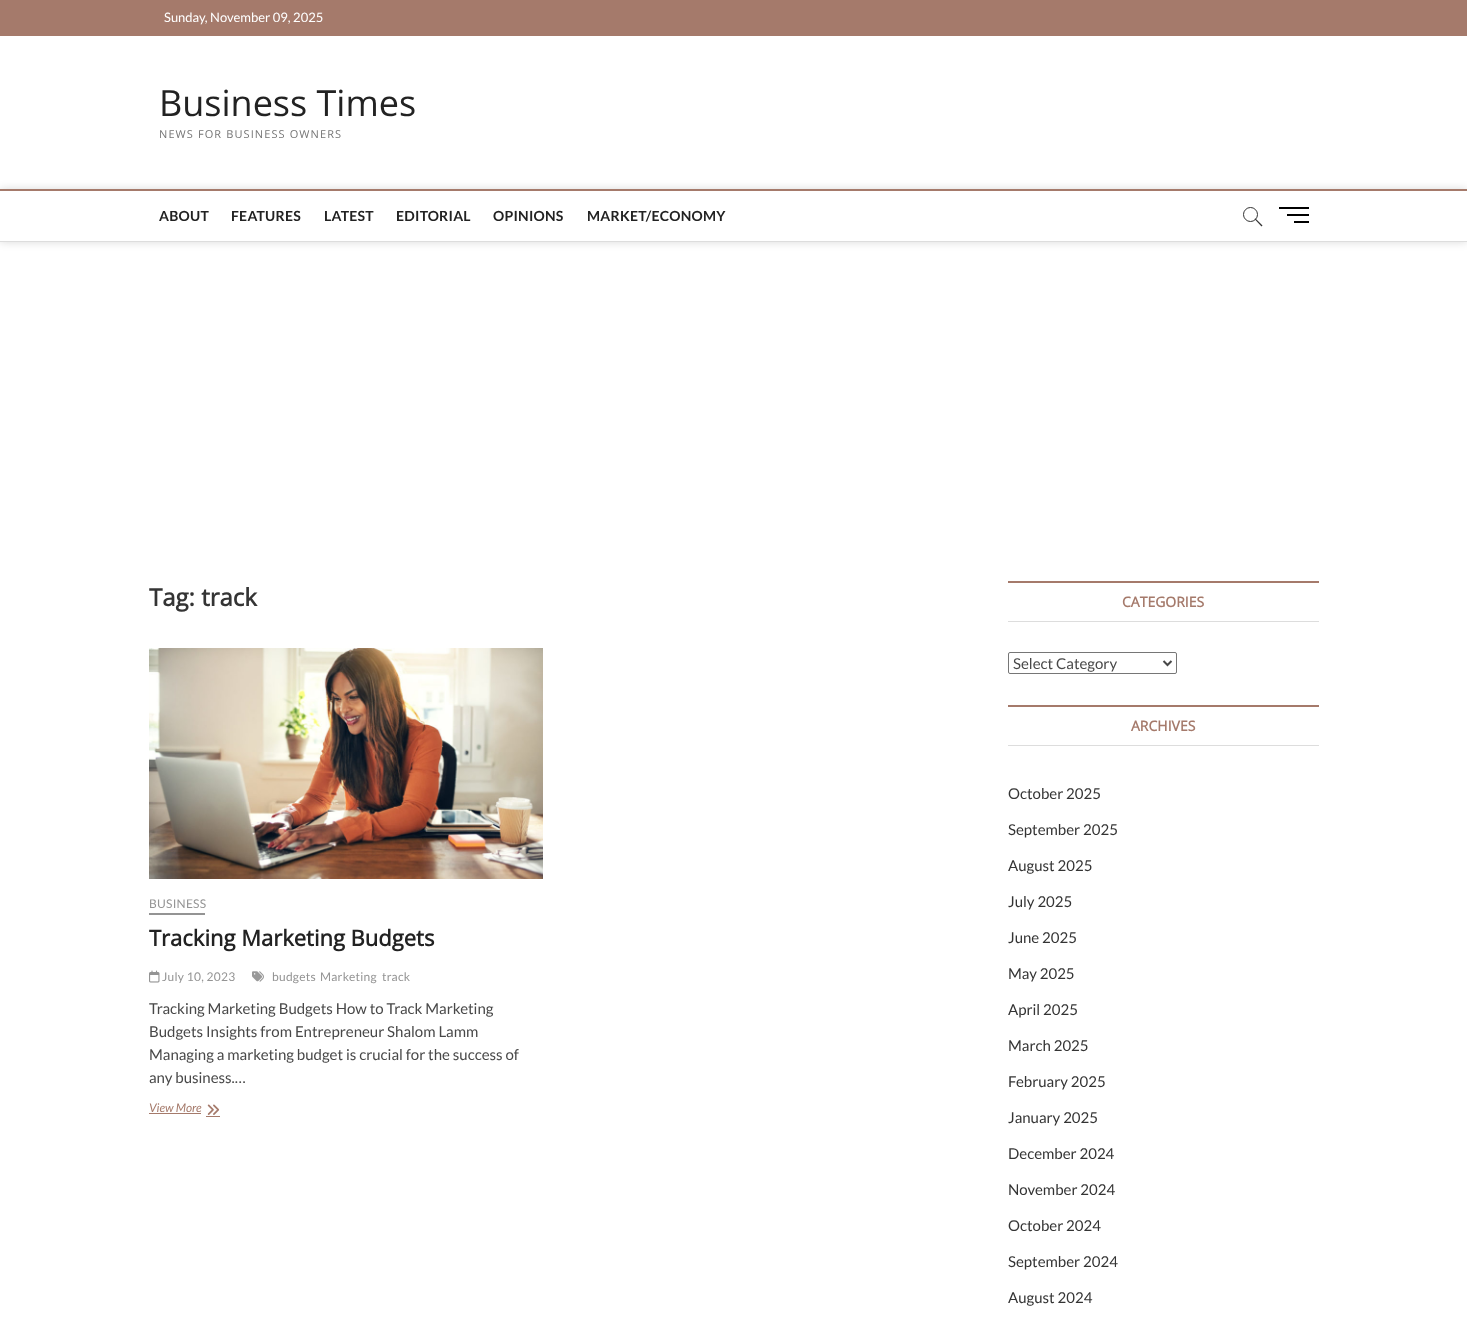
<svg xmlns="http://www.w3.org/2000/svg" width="1467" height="1329">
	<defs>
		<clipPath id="clip1"><path d="M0 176H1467V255H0ZM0 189H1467V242H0Z" clip-rule="evenodd" /></clipPath>
	</defs>
	<rect width="100%" height="100%" fill="#FFFFFF" />
	<rect x="0" y="0" width="1467" height="36" fill="#A57A6B" />
	<text x="164" y="22" font-family="Lato" font-size="13" fill="#FFFFFF">Sunday, November 09, 2025</text>
	<text x="159" y="116" font-family="Open Sans" font-size="36" fill="#222222">Business Times</text>
	<text x="159" y="138" font-family="Open Sans" font-size="11" letter-spacing="1.1" fill="#747474">NEWS FOR BUSINESS OWNERS</text>
	<g clip-path="url(#clip1)">
		<rect x="0" y="189" width="1467" height="53" fill="#000000" fill-opacity="0.15" filter="blur(4px)" />
	</g>
	<rect x="0" y="189" width="1467" height="2" fill="#A57A6B" />
	<rect x="0" y="241" width="1467" height="1" fill="#DDDDDD" />
	<g font-family="Lato" font-size="14" font-weight="700" letter-spacing="0.25" fill="#222222">
		<text x="159" y="221">ABOUT</text>
		<text x="231" y="221">FEATURES</text>
		<text x="324" y="221">LATEST</text>
		<text x="396" y="221">EDITORIAL</text>
		<text x="493" y="221">OPINIONS</text>
		<text x="587" y="221">MARKET/ECONOMY</text>
	</g>
	<circle cx="1250.5" cy="214.5" r="7" fill="none" stroke="#333333" />
	<path d="M1254.5 219L1255.5 218.5L1262.5 225.5L1261.5 226.5Z" fill="#333333" />
	<rect x="1287" y="214" width="22" height="2" fill="#000000" />
	<rect x="1279" y="207" width="30" height="2" fill="#000000" />
	<rect x="1294" y="221" width="15" height="2" fill="#000000" />
	<text x="149" y="606" font-family="Open Sans" font-size="24" font-weight="700" fill="#343434">Tag: track</text>
	<image x="149" y="648" width="394" height="231" href="assets/img1.png" />
	<text x="149" y="908" font-family="Lato" font-size="12" letter-spacing="0.25" fill="#949494">BUSINESS</text>
	<rect x="149" y="913" width="56" height="2" fill="#949494" />
	<text x="149" y="946" font-family="Open Sans" font-size="22" font-weight="700" fill="#222222">Tracking Marketing Budgets</text>
	<image x="149" y="970" width="11" height="13" href="assets/img2.png" />
	<text x="162" y="981" font-family="Lato" font-size="12" letter-spacing="0.25" fill="#949494">July 10, 2023</text>
	<image x="252" y="971" width="12" height="11" href="assets/img3.png" />
	<g font-family="Lato" font-size="12" letter-spacing="0.25" fill="#949494">
		<text x="272" y="981">budgets</text>
		<text x="320" y="981">Marketing</text>
		<text x="382" y="981">track</text>
	</g>
	<g font-family="Lato" font-size="15" fill="#484848">
		<text x="149" y="1014">Tracking Marketing Budgets How to Track Marketing</text>
		<text x="149" y="1037">Budgets Insights from Entrepreneur Shalom Lamm</text>
		<text x="149" y="1060">Managing a marketing budget is crucial for the success of</text>
		<text x="149" y="1083">any business.…</text>
	</g>
	<text x="149" y="1112" font-family="Lato" font-size="12" font-style="italic" fill="#A57A6B">View More</text>
	<rect x="149" y="1113" width="52" height="1" fill="#A57A6B" />
	<image x="207" y="1104" width="13" height="11" href="assets/img4.png" />
	<rect x="206" y="1116" width="14" height="1" fill="#A57A6B" />
	<rect x="1008" y="581" width="311" height="2" fill="#A57A6B" />
	<rect x="1008" y="621" width="311" height="1" fill="#DDDDDD" />
	<text x="1122" y="607" font-family="Open Sans" font-size="14" font-weight="700" fill="#A57A6B">CATEGORIES</text>
	<rect x="1008.5" y="652.5" width="168" height="21" rx="1.5" fill="none" stroke="#767676" />
	<path d="M1163.5 661L1167.5 665L1171.5 661" fill="none" stroke="#484848" stroke-width="2" />
	<text x="1013" y="669" font-family="Lato" font-size="15" fill="#484848">Select Category</text>
	<rect x="1008" y="705" width="311" height="2" fill="#A57A6B" />
	<rect x="1008" y="745" width="311" height="1" fill="#DDDDDD" />
	<text x="1131" y="731" font-family="Open Sans" font-size="14" font-weight="700" fill="#A57A6B">ARCHIVES</text>
	<g font-family="Lato" font-size="15" fill="#343434">
		<text x="1008" y="799">October 2025</text>
		<text x="1008" y="835">September 2025</text>
		<text x="1008" y="871">August 2025</text>
		<text x="1008" y="907">July 2025</text>
		<text x="1008" y="943">June 2025</text>
		<text x="1008" y="979">May 2025</text>
		<text x="1008" y="1015">April 2025</text>
		<text x="1008" y="1051">March 2025</text>
		<text x="1008" y="1087">February 2025</text>
		<text x="1008" y="1123">January 2025</text>
		<text x="1008" y="1159">December 2024</text>
		<text x="1008" y="1195">November 2024</text>
		<text x="1008" y="1231">October 2024</text>
		<text x="1008" y="1267">September 2024</text>
		<text x="1008" y="1303">August 2024</text>
	</g>
</svg>
